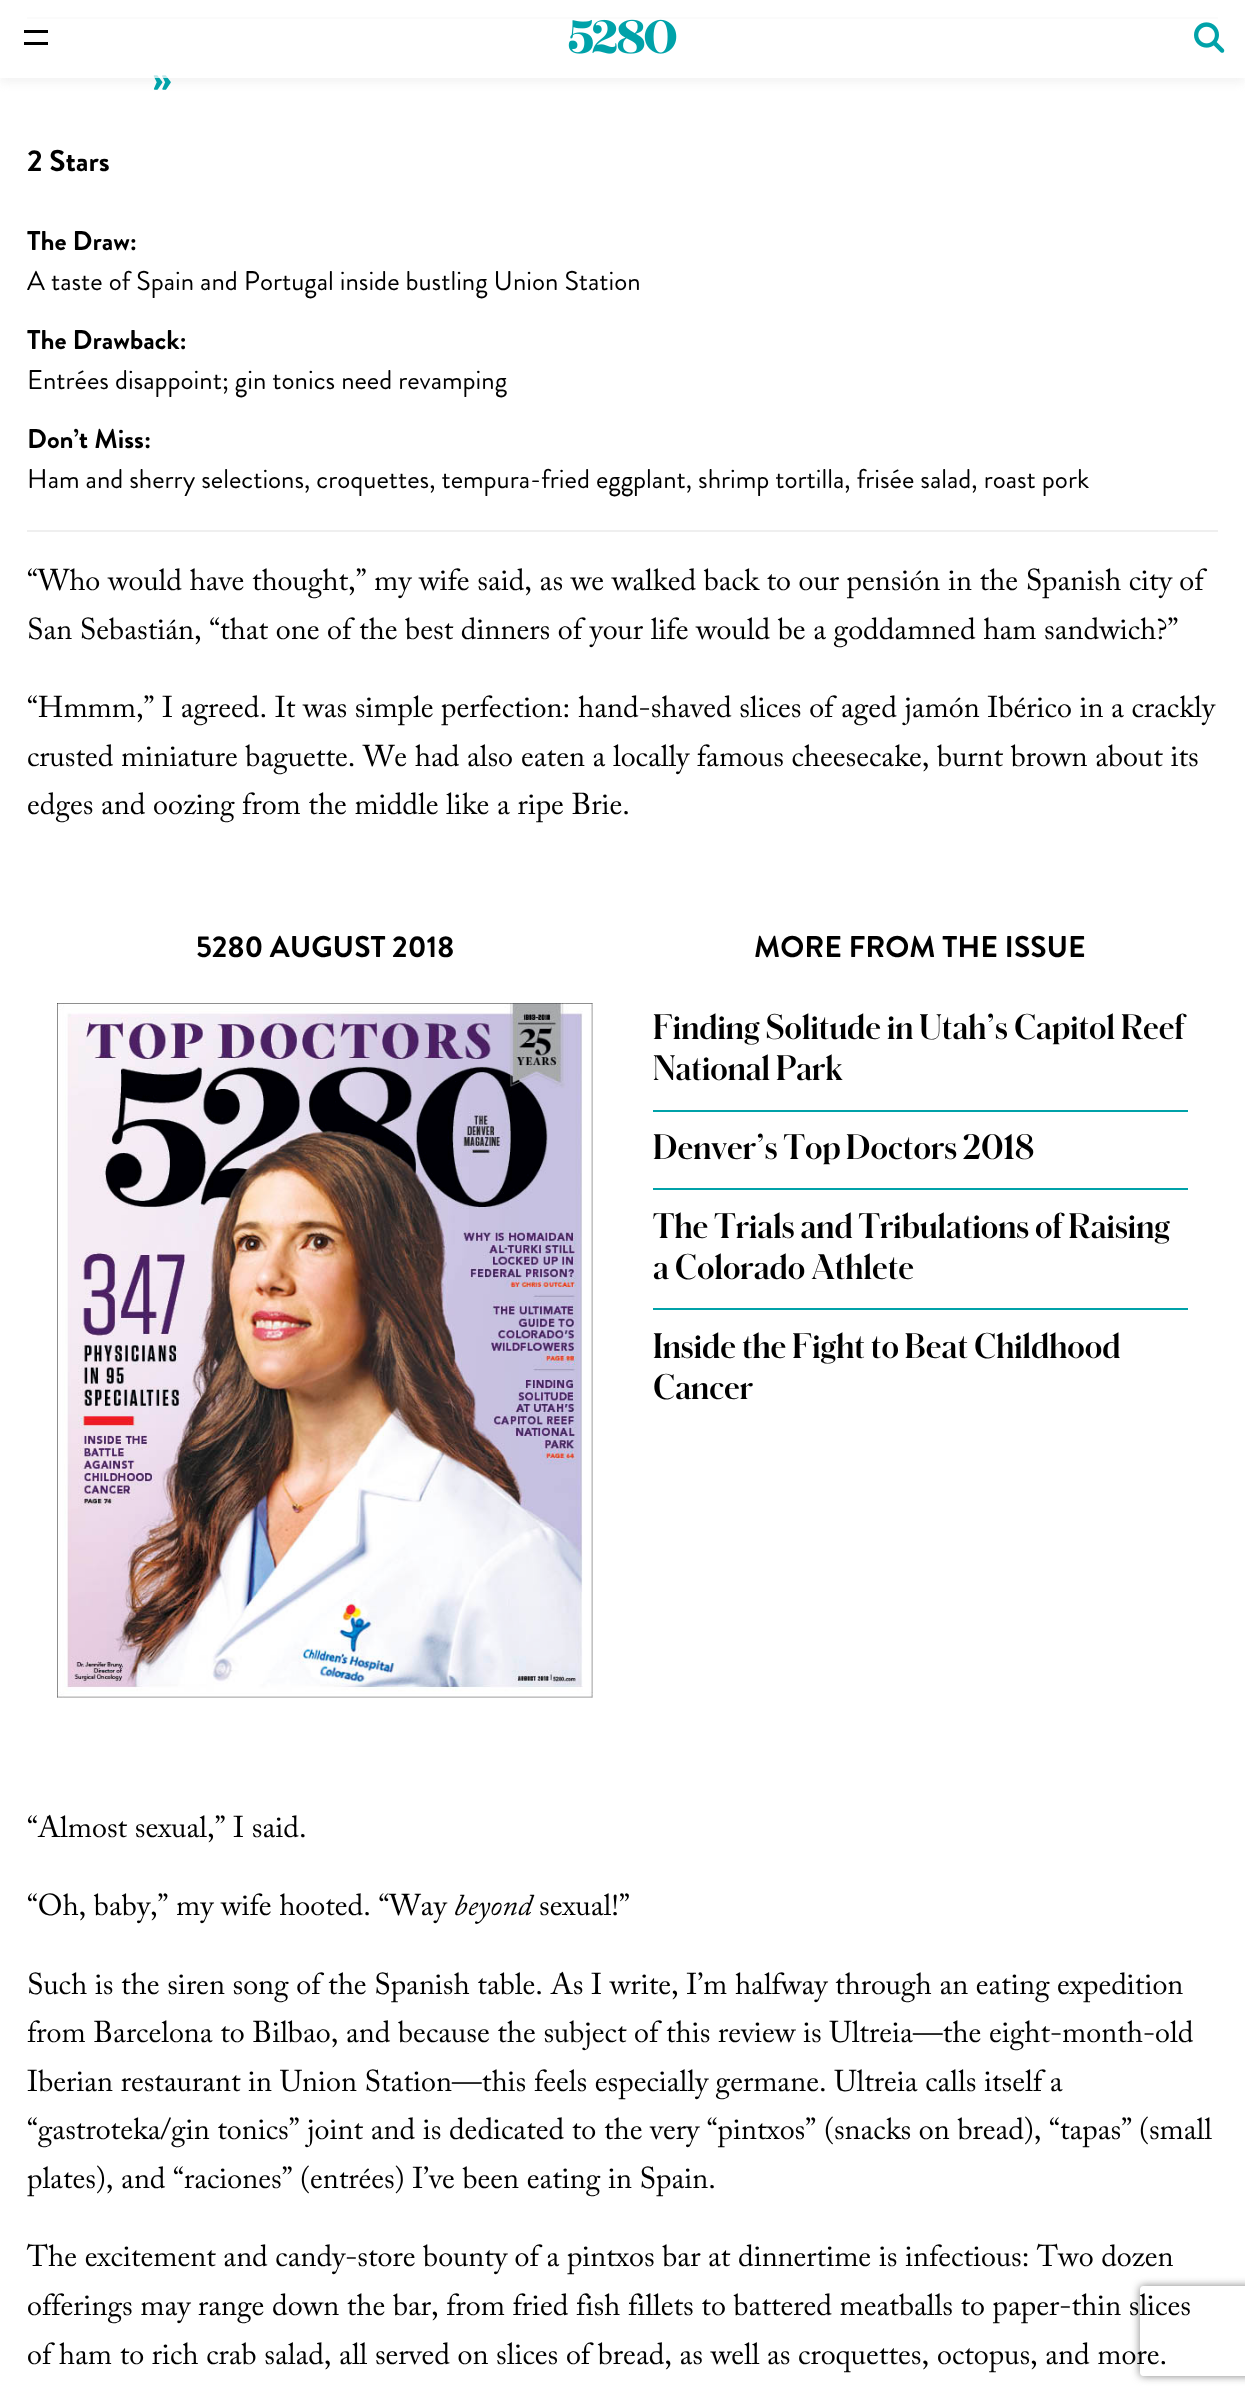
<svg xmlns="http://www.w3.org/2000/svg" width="1245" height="2396">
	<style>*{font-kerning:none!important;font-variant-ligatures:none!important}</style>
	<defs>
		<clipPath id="clip1"><rect x="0" y="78" width="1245" height="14" /></clipPath>
		<clipPath id="clip2"><path d="M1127 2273H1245V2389H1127ZM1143 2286H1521C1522.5 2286 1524 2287.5 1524 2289V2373C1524 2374.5 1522.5 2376 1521 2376H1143C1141.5 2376 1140 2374.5 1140 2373V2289C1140 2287.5 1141.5 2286 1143 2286Z" clip-rule="evenodd" /></clipPath>
	</defs>
	<rect width="100%" height="100%" fill="#FFFFFF" />
	<rect x="27" y="17" width="1191" height="2" fill="#EFEFEF" />
	<g clip-path="url(#clip1)">
		<rect x="0" y="5" width="1245" height="78" fill="#EFEFEF" fill-opacity="0.75" filter="blur(4.5px)" />
	</g>
	<text x="152" y="91" font-family="Brandon Grotesque" font-size="42" font-weight="700" fill="#00A2A9">»</text>
	<rect x="27" y="17" width="1191" height="61" fill="#FFFFFF" fill-opacity="0.75" />
	<rect x="24" y="30" width="24" height="3" fill="#000000" />
	<rect x="24" y="42" width="24" height="3" fill="#000000" />
	<image x="568" y="19" width="109" height="35" href="assets/img1.png" />
	<image x="1194" y="22" width="31" height="31" href="assets/img2.png" />
	<g clip-path="url(#clip2)">
		<rect x="1140" y="2286" width="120" height="90" rx="3" fill="#808080" filter="blur(4px)" />
	</g>
	<text x="27" y="171" font-family="Brandon Grotesque" font-size="30" font-weight="700" fill="#000000">2 Stars</text>
	<text x="27" y="250" font-family="Brandon Grotesque" font-size="27" font-weight="700" fill="#000000">The Draw:</text>
	<text x="27" y="290" font-family="Brandon Grotesque" font-size="27" fill="#000000">A taste of Spain and Portugal inside bustling Union Station</text>
	<text x="27" y="349" font-family="Brandon Grotesque" font-size="27" font-weight="700" fill="#000000">The Drawback:</text>
	<text x="27" y="389" font-family="Brandon Grotesque" font-size="27" fill="#000000">Entrées disappoint; gin tonics need revamping</text>
	<text x="27" y="448" font-family="Brandon Grotesque" font-size="27" font-weight="700" fill="#000000">Don’t Miss:</text>
	<text x="27" y="488" font-family="Brandon Grotesque" font-size="27" fill="#000000">Ham and sherry selections, croquettes, tempura-fried eggplant, shrimp tortilla, frisée salad, roast pork</text>
	<rect x="27" y="530" width="1191" height="2" fill="#EFEFEF" />
	<g font-family="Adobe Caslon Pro" font-size="30" fill="#000000">
		<text x="27" y="590">“Who would have thought,” my wife said, as we walked back to our pensión in the Spanish city of</text>
		<text x="27" y="639">San Sebastián, “that one of the best dinners of your life would be a goddamned ham sandwich?”</text>
		<text x="27" y="717">“Hmmm,” I agreed. It was simple perfection:</text>
		<text x="578" y="717">hand-shaved slices of aged jamón Ibérico in a crackly</text>
		<text x="27" y="766">crusted miniature baguette. We had also</text>
		<text x="521" y="766">eaten a locally famous cheesecake, burnt brown about its</text>
		<text x="27" y="814">edges and oozing from the middle like a ripe Brie.</text>
	</g>
	<text x="196" y="957" font-family="Brandon Grotesque" font-size="30" font-weight="700" fill="#000000">5280 AUGUST 2018</text>
	<image x="57" y="1003" width="536" height="695" href="assets/img3.png" />
	<text x="754" y="957" font-family="Brandon Grotesque" font-size="30" font-weight="700" fill="#000000">MORE FROM THE ISSUE</text>
	<rect x="653" y="1110" width="535" height="2" fill="#00A2A9" />
	<g font-family="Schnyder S" font-size="33" font-weight="700" fill="#000000">
		<text x="653" y="1039">Finding Solitude in Utah’s Capitol Reef</text>
		<text x="653" y="1080">National Park</text>
	</g>
	<rect x="653" y="1188" width="535" height="2" fill="#00A2A9" />
	<text x="653" y="1159" font-family="Schnyder S" font-size="33" font-weight="700" fill="#000000">Denver’s Top</text>
	<text x="846" y="1159" font-family="Schnyder S" font-size="33" font-weight="700" fill="#000000">Doctors 2018</text>
	<rect x="653" y="1308" width="535" height="2" fill="#00A2A9" />
	<g font-family="Schnyder S" font-size="33" font-weight="700" fill="#000000">
		<text x="653" y="1238">The Trials and Tribulations</text>
		<text x="1035" y="1238">of Raising</text>
		<text x="653" y="1279">a Colorado Athlete</text>
		<text x="653" y="1358">Inside the Fight to Beat Childhood</text>
		<text x="653" y="1399">Cancer</text>
	</g>
	<g font-family="Adobe Caslon Pro" font-size="30" fill="#000000">
		<text x="27" y="1837">“Almost sexual,”</text>
		<text x="233" y="1837">I said.</text>
		<text x="27" y="1915">“Oh, baby,”</text>
		<text x="176" y="1915">my wife hooted. “Way</text>
	</g>
	<text x="454" y="1915" font-family="Adobe Caslon Pro" font-size="30" font-style="italic" fill="#000000">beyond</text>
	<g font-family="Adobe Caslon Pro" font-size="30" fill="#000000">
		<text x="539" y="1915">sexual!”</text>
		<text x="27" y="1994">Such is the siren song of the Spanish table. As I write, I’m halfway through an eating expedition</text>
		<text x="27" y="2042">from Barcelona to Bilbao, and because the subject of this review is Ultreia—the eight-month-old</text>
		<text x="27" y="2091">Iberian restaurant in Union Station—this feels especially germane. Ultreia calls itself a</text>
		<text x="27" y="2139">“gastroteka/gin tonics” joint and is dedicated to the very “pintxos”</text>
		<text x="824" y="2139">(snacks on bread), “tapas”</text>
		<text x="1139" y="2139">(small</text>
		<text x="27" y="2188">plates), and “raciones”</text>
		<text x="300" y="2188">(entrées) I’ve been eating in Spain.</text>
		<text x="27" y="2266">The excitement and candy-store bounty of a pintxos bar at dinnertime is infectious:</text>
		<text x="1037" y="2266">Two dozen</text>
		<text x="27" y="2315">offerings may range down the bar, from fried fish</text>
		<text x="628" y="2315">fillets to battered meatballs to paper-thin slices</text>
		<text x="27" y="2364">of ham to rich crab salad, all served on slices of bread, as well as croquettes,</text>
		<text x="937" y="2364">octopus, and more.</text>
	</g>
</svg>
